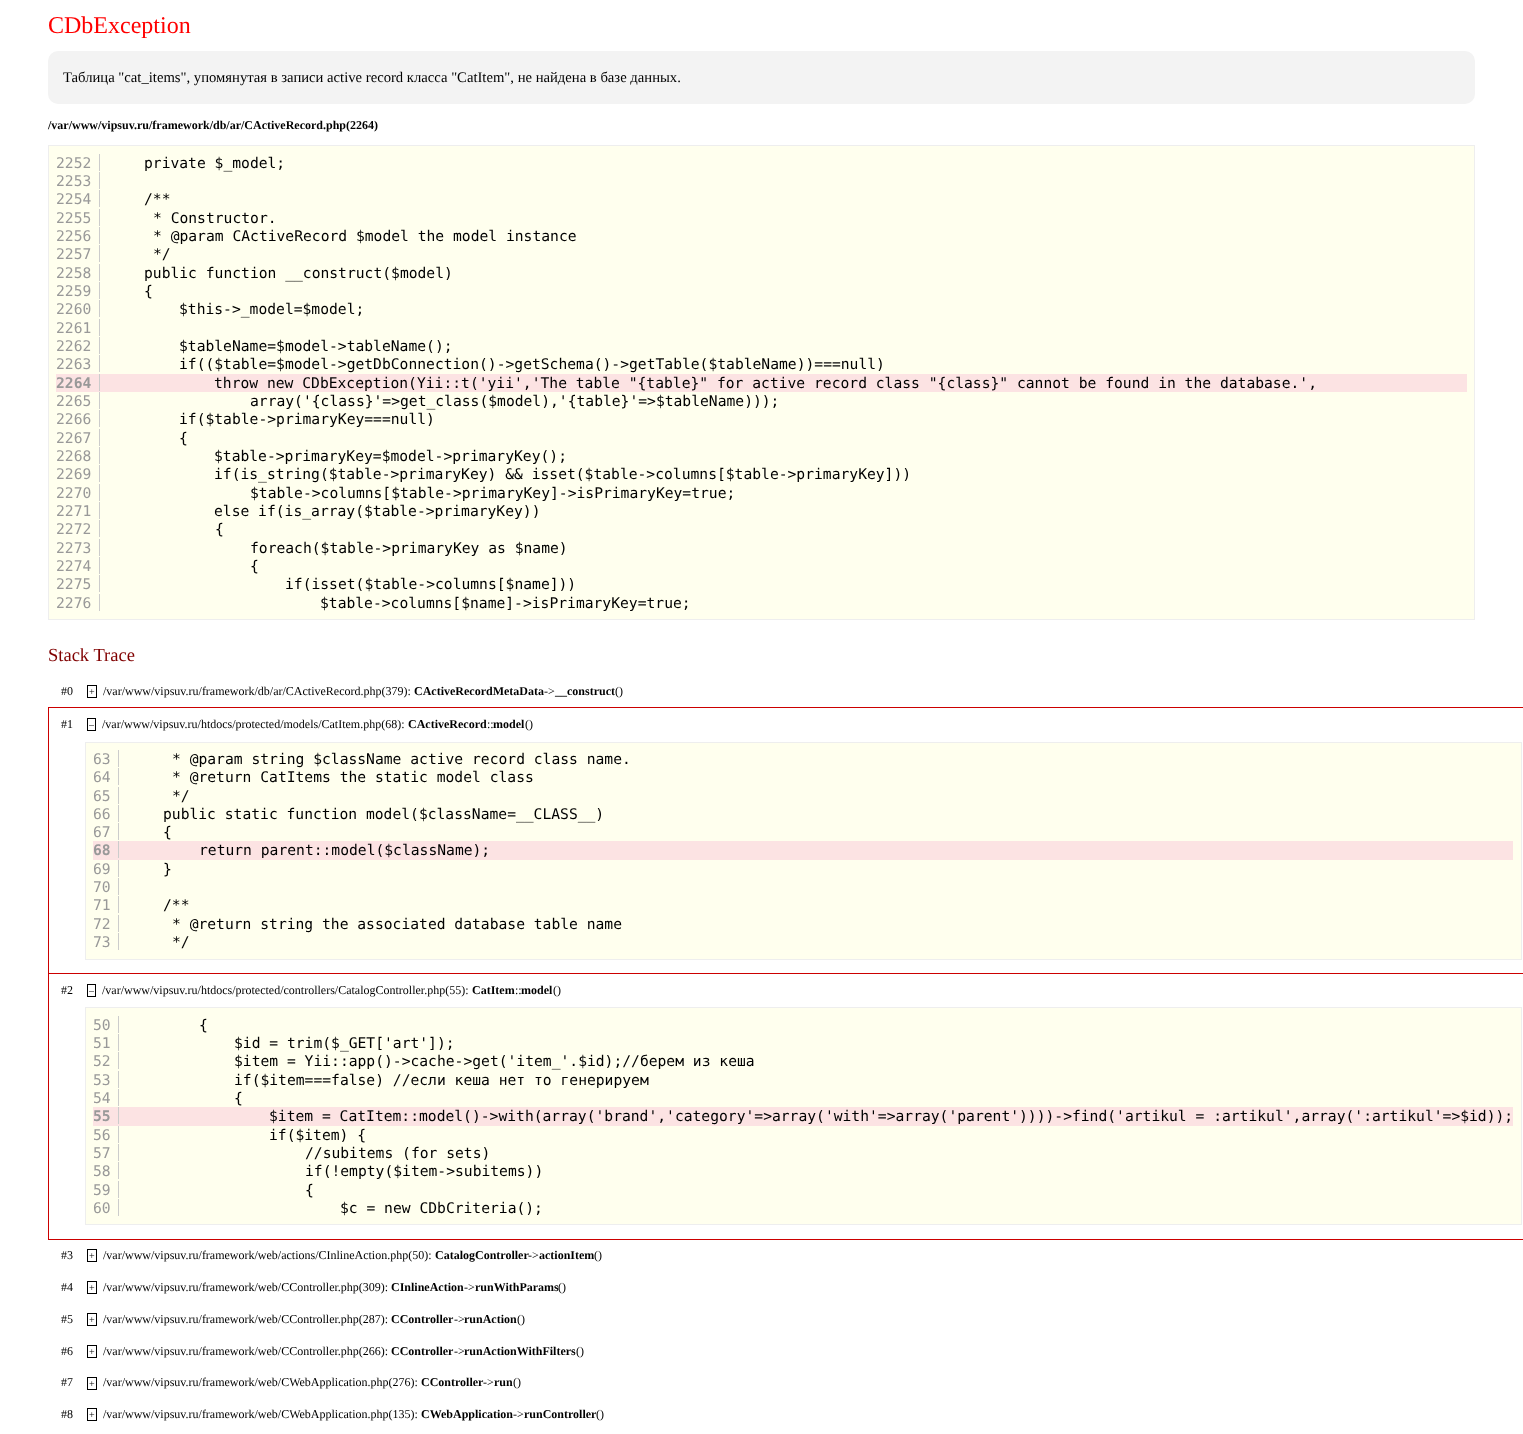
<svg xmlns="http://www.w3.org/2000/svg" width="1523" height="1434">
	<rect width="100%" height="100%" fill="#FFFFFF" />
	<text x="48" y="33" font-family="Liberation Serif" font-size="24" fill="#FF0000">CDbException</text>
	<rect x="48" y="51" width="1427" height="53" rx="10" fill="#F3F3F3" />
	<text x="63" y="82" font-family="Liberation Serif" font-size="14.67" fill="#000000">Таблица "cat_items", упомянутая в записи active record класса "CatItem", не найдена в базе данных.</text>
	<text x="48" y="129" font-family="Liberation Serif" font-size="12" font-weight="700" fill="#000000">/var/www/vipsuv.ru/framework/db/ar/CActiveRecord.php(2264)</text>
	<rect x="48.5" y="145.5" width="1426" height="474" fill="#FFFFEE" stroke="#EEEEEE" />
	<text x="56" y="168" font-family="DejaVu Sans Mono" font-size="14.67" fill="#999999">2252</text>
	<rect x="99" y="154" width="1" height="17" fill="#CCCCCC" />
	<text x="144" y="168" font-family="DejaVu Sans Mono" font-size="14.67" fill="#000000">private $_model;</text>
	<text x="56" y="186" font-family="DejaVu Sans Mono" font-size="14.67" fill="#999999">2253</text>
	<rect x="99" y="172" width="1" height="17" fill="#CCCCCC" />
	<text x="56" y="204" font-family="DejaVu Sans Mono" font-size="14.67" fill="#999999">2254</text>
	<rect x="99" y="190" width="1" height="17" fill="#CCCCCC" />
	<text x="144" y="204" font-family="DejaVu Sans Mono" font-size="14.67" fill="#000000">/**</text>
	<text x="56" y="223" font-family="DejaVu Sans Mono" font-size="14.67" fill="#999999">2255</text>
	<rect x="99" y="209" width="1" height="17" fill="#CCCCCC" />
	<text x="153" y="223" font-family="DejaVu Sans Mono" font-size="14.67" fill="#000000">* Constructor.</text>
	<text x="56" y="241" font-family="DejaVu Sans Mono" font-size="14.67" fill="#999999">2256</text>
	<rect x="99" y="227" width="1" height="17" fill="#CCCCCC" />
	<text x="153" y="241" font-family="DejaVu Sans Mono" font-size="14.67" fill="#000000">* @param CActiveRecord $model the model instance</text>
	<text x="56" y="259" font-family="DejaVu Sans Mono" font-size="14.67" fill="#999999">2257</text>
	<rect x="99" y="245" width="1" height="17" fill="#CCCCCC" />
	<text x="153" y="259" font-family="DejaVu Sans Mono" font-size="14.67" fill="#000000">*/</text>
	<text x="56" y="278" font-family="DejaVu Sans Mono" font-size="14.67" fill="#999999">2258</text>
	<rect x="99" y="264" width="1" height="17" fill="#CCCCCC" />
	<text x="144" y="278" font-family="DejaVu Sans Mono" font-size="14.67" fill="#000000">public function __construct($model)</text>
	<text x="56" y="296" font-family="DejaVu Sans Mono" font-size="14.67" fill="#999999">2259</text>
	<rect x="99" y="282" width="1" height="17" fill="#CCCCCC" />
	<text x="144" y="296" font-family="DejaVu Sans Mono" font-size="14.67" fill="#000000">{</text>
	<text x="56" y="314" font-family="DejaVu Sans Mono" font-size="14.67" fill="#999999">2260</text>
	<rect x="99" y="300" width="1" height="17" fill="#CCCCCC" />
	<text x="179" y="314" font-family="DejaVu Sans Mono" font-size="14.67" fill="#000000">$this-&gt;_model=$model;</text>
	<text x="56" y="333" font-family="DejaVu Sans Mono" font-size="14.67" fill="#999999">2261</text>
	<rect x="99" y="319" width="1" height="17" fill="#CCCCCC" />
	<text x="56" y="351" font-family="DejaVu Sans Mono" font-size="14.67" fill="#999999">2262</text>
	<rect x="99" y="337" width="1" height="17" fill="#CCCCCC" />
	<text x="179" y="351" font-family="DejaVu Sans Mono" font-size="14.67" fill="#000000">$tableName=$model-&gt;tableName();</text>
	<text x="56" y="369" font-family="DejaVu Sans Mono" font-size="14.67" fill="#999999">2263</text>
	<rect x="99" y="355" width="1" height="17" fill="#CCCCCC" />
	<text x="179" y="369" font-family="DejaVu Sans Mono" font-size="14.67" fill="#000000">if(($table=$model-&gt;getDbConnection()-&gt;getSchema()-&gt;getTable($tableName))===null)</text>
	<rect x="56" y="374" width="1411" height="18" fill="#FCE3E3" />
	<text x="56" y="388" font-family="DejaVu Sans Mono" font-size="14.67" font-weight="700" fill="#999999">2264</text>
	<rect x="99" y="374" width="1" height="17" fill="#CCCCCC" />
	<text x="214" y="388" font-family="DejaVu Sans Mono" font-size="14.67" fill="#000000">throw new CDbException(Yii::t('yii','The table "{table}" for active record class "{class}" cannot be found in the database.',</text>
	<text x="56" y="406" font-family="DejaVu Sans Mono" font-size="14.67" fill="#999999">2265</text>
	<rect x="99" y="392" width="1" height="17" fill="#CCCCCC" />
	<text x="250" y="406" font-family="DejaVu Sans Mono" font-size="14.67" fill="#000000">array('{class}'=&gt;get_class($model),'{table}'=&gt;$tableName)));</text>
	<text x="56" y="424" font-family="DejaVu Sans Mono" font-size="14.67" fill="#999999">2266</text>
	<rect x="99" y="410" width="1" height="17" fill="#CCCCCC" />
	<text x="179" y="424" font-family="DejaVu Sans Mono" font-size="14.67" fill="#000000">if($table-&gt;primaryKey===null)</text>
	<text x="56" y="443" font-family="DejaVu Sans Mono" font-size="14.67" fill="#999999">2267</text>
	<rect x="99" y="429" width="1" height="17" fill="#CCCCCC" />
	<text x="179" y="443" font-family="DejaVu Sans Mono" font-size="14.67" fill="#000000">{</text>
	<text x="56" y="461" font-family="DejaVu Sans Mono" font-size="14.67" fill="#999999">2268</text>
	<rect x="99" y="447" width="1" height="17" fill="#CCCCCC" />
	<text x="214" y="461" font-family="DejaVu Sans Mono" font-size="14.67" fill="#000000">$table-&gt;primaryKey=$model-&gt;primaryKey();</text>
	<text x="56" y="479" font-family="DejaVu Sans Mono" font-size="14.67" fill="#999999">2269</text>
	<rect x="99" y="465" width="1" height="17" fill="#CCCCCC" />
	<text x="214" y="479" font-family="DejaVu Sans Mono" font-size="14.67" fill="#000000">if(is_string($table-&gt;primaryKey) &amp;&amp; isset($table-&gt;columns[$table-&gt;primaryKey]))</text>
	<text x="56" y="498" font-family="DejaVu Sans Mono" font-size="14.67" fill="#999999">2270</text>
	<rect x="99" y="484" width="1" height="17" fill="#CCCCCC" />
	<text x="250" y="498" font-family="DejaVu Sans Mono" font-size="14.67" fill="#000000">$table-&gt;columns[$table-&gt;primaryKey]-&gt;isPrimaryKey=true;</text>
	<text x="56" y="516" font-family="DejaVu Sans Mono" font-size="14.67" fill="#999999">2271</text>
	<rect x="99" y="502" width="1" height="17" fill="#CCCCCC" />
	<text x="214" y="516" font-family="DejaVu Sans Mono" font-size="14.67" fill="#000000">else if(is_array($table-&gt;primaryKey))</text>
	<text x="56" y="534" font-family="DejaVu Sans Mono" font-size="14.67" fill="#999999">2272</text>
	<rect x="99" y="520" width="1" height="17" fill="#CCCCCC" />
	<text x="215" y="534" font-family="DejaVu Sans Mono" font-size="14.67" fill="#000000">{</text>
	<text x="56" y="553" font-family="DejaVu Sans Mono" font-size="14.67" fill="#999999">2273</text>
	<rect x="99" y="539" width="1" height="17" fill="#CCCCCC" />
	<text x="250" y="553" font-family="DejaVu Sans Mono" font-size="14.67" fill="#000000">foreach($table-&gt;primaryKey as $name)</text>
	<text x="56" y="571" font-family="DejaVu Sans Mono" font-size="14.67" fill="#999999">2274</text>
	<rect x="99" y="557" width="1" height="17" fill="#CCCCCC" />
	<text x="250" y="571" font-family="DejaVu Sans Mono" font-size="14.67" fill="#000000">{</text>
	<text x="56" y="589" font-family="DejaVu Sans Mono" font-size="14.67" fill="#999999">2275</text>
	<rect x="99" y="575" width="1" height="17" fill="#CCCCCC" />
	<text x="285" y="589" font-family="DejaVu Sans Mono" font-size="14.67" fill="#000000">if(isset($table-&gt;columns[$name]))</text>
	<text x="56" y="608" font-family="DejaVu Sans Mono" font-size="14.67" fill="#999999">2276</text>
	<rect x="99" y="594" width="1" height="17" fill="#CCCCCC" />
	<text x="320" y="608" font-family="DejaVu Sans Mono" font-size="14.67" fill="#000000">$table-&gt;columns[$name]-&gt;isPrimaryKey=true;</text>
	<text x="48" y="661" font-family="Liberation Serif" font-size="18.5" fill="#800000">Stack Trace</text>
	<text x="61" y="695" font-family="Liberation Serif" font-size="12" fill="#000000">#0</text>
	<rect x="87.5" y="685.5" width="9" height="12" fill="none" stroke="#000000" />
	<text x="89" y="695" font-family="Liberation Serif" font-size="10" fill="#000000">+</text>
	<text x="103" y="695" font-family="Liberation Serif" font-size="12" fill="#000000">/var/www/vipsuv.ru/framework/db/ar/CActiveRecord.php(379):</text>
	<text x="414" y="695" font-family="Liberation Serif" font-size="12" font-weight="700" fill="#000000">CActiveRecordMetaData</text>
	<text x="544" y="695" font-family="Liberation Serif" font-size="12" fill="#000000">-&gt;</text>
	<text x="555" y="695" font-family="Liberation Serif" font-size="12" font-weight="700" fill="#000000">__construct</text>
	<text x="615" y="695" font-family="Liberation Serif" font-size="12" fill="#000000">()</text>
	<rect x="48" y="707" width="1475" height="1" fill="#CC0000" />
	<rect x="48" y="973" width="1475" height="1" fill="#CC0000" />
	<rect x="48" y="1239" width="1475" height="1" fill="#CC0000" />
	<rect x="48" y="973" width="1" height="267" fill="#CC0000" />
	<rect x="48" y="707" width="1" height="267" fill="#CC0000" />
	<text x="61" y="728" font-family="Liberation Serif" font-size="12" fill="#000000">#1</text>
	<rect x="87.5" y="718.5" width="8" height="12" fill="none" stroke="#000000" />
	<text x="89" y="728" font-family="Liberation Serif" font-size="10" fill="#000000">–</text>
	<text x="102" y="728" font-family="Liberation Serif" font-size="12" fill="#000000">/var/www/vipsuv.ru/htdocs/protected/models/CatItem.php(68):</text>
	<text x="408" y="728" font-family="Liberation Serif" font-size="12" font-weight="700" fill="#000000">CActiveRecord</text>
	<text x="487" y="728" font-family="Liberation Serif" font-size="12" fill="#000000">::</text>
	<text x="493" y="728" font-family="Liberation Serif" font-size="12" font-weight="700" fill="#000000">model</text>
	<text x="525" y="728" font-family="Liberation Serif" font-size="12" fill="#000000">()</text>
	<rect x="85.5" y="742.5" width="1436" height="217" fill="#FFFFEE" stroke="#EEEEEE" />
	<text x="93" y="764" font-family="DejaVu Sans Mono" font-size="14.67" fill="#999999">63</text>
	<rect x="118" y="750" width="1" height="17" fill="#CCCCCC" />
	<text x="172" y="764" font-family="DejaVu Sans Mono" font-size="14.67" fill="#000000">* @param string $className active record class name.</text>
	<text x="93" y="782" font-family="DejaVu Sans Mono" font-size="14.67" fill="#999999">64</text>
	<rect x="118" y="768" width="1" height="17" fill="#CCCCCC" />
	<text x="172" y="782" font-family="DejaVu Sans Mono" font-size="14.67" fill="#000000">* @return CatItems the static model class</text>
	<text x="93" y="801" font-family="DejaVu Sans Mono" font-size="14.67" fill="#999999">65</text>
	<rect x="118" y="787" width="1" height="17" fill="#CCCCCC" />
	<text x="172" y="801" font-family="DejaVu Sans Mono" font-size="14.67" fill="#000000">*/</text>
	<text x="93" y="819" font-family="DejaVu Sans Mono" font-size="14.67" fill="#999999">66</text>
	<rect x="118" y="805" width="1" height="17" fill="#CCCCCC" />
	<text x="163" y="819" font-family="DejaVu Sans Mono" font-size="14.67" fill="#000000">public static function model($className=__CLASS__)</text>
	<text x="93" y="837" font-family="DejaVu Sans Mono" font-size="14.67" fill="#999999">67</text>
	<rect x="118" y="823" width="1" height="17" fill="#CCCCCC" />
	<text x="163" y="837" font-family="DejaVu Sans Mono" font-size="14.67" fill="#000000">{</text>
	<rect x="93" y="841" width="1420" height="19" fill="#FCE3E3" />
	<text x="93" y="855" font-family="DejaVu Sans Mono" font-size="14.67" font-weight="700" fill="#999999">68</text>
	<rect x="118" y="841" width="1" height="17" fill="#CCCCCC" />
	<text x="199" y="855" font-family="DejaVu Sans Mono" font-size="14.67" fill="#000000">return parent::model($className);</text>
	<text x="93" y="874" font-family="DejaVu Sans Mono" font-size="14.67" fill="#999999">69</text>
	<rect x="118" y="860" width="1" height="17" fill="#CCCCCC" />
	<text x="163" y="874" font-family="DejaVu Sans Mono" font-size="14.67" fill="#000000">}</text>
	<text x="93" y="892" font-family="DejaVu Sans Mono" font-size="14.67" fill="#999999">70</text>
	<rect x="118" y="878" width="1" height="17" fill="#CCCCCC" />
	<text x="93" y="910" font-family="DejaVu Sans Mono" font-size="14.67" fill="#999999">71</text>
	<rect x="118" y="896" width="1" height="17" fill="#CCCCCC" />
	<text x="163" y="910" font-family="DejaVu Sans Mono" font-size="14.67" fill="#000000">/**</text>
	<text x="93" y="929" font-family="DejaVu Sans Mono" font-size="14.67" fill="#999999">72</text>
	<rect x="118" y="915" width="1" height="17" fill="#CCCCCC" />
	<text x="172" y="929" font-family="DejaVu Sans Mono" font-size="14.67" fill="#000000">* @return string the associated database table name</text>
	<text x="93" y="947" font-family="DejaVu Sans Mono" font-size="14.67" fill="#999999">73</text>
	<rect x="118" y="933" width="1" height="17" fill="#CCCCCC" />
	<text x="172" y="947" font-family="DejaVu Sans Mono" font-size="14.67" fill="#000000">*/</text>
	<text x="61" y="994" font-family="Liberation Serif" font-size="12" fill="#000000">#2</text>
	<rect x="87.5" y="984.5" width="8" height="12" fill="none" stroke="#000000" />
	<text x="89" y="994" font-family="Liberation Serif" font-size="10" fill="#000000">–</text>
	<text x="102" y="994" font-family="Liberation Serif" font-size="12" fill="#000000">/var/www/vipsuv.ru/htdocs/protected/controllers/CatalogController.php(55):</text>
	<text x="472" y="994" font-family="Liberation Serif" font-size="12" font-weight="700" fill="#000000">CatItem</text>
	<text x="515" y="994" font-family="Liberation Serif" font-size="12" fill="#000000">::</text>
	<text x="521" y="994" font-family="Liberation Serif" font-size="12" font-weight="700" fill="#000000">model</text>
	<text x="553" y="994" font-family="Liberation Serif" font-size="12" fill="#000000">()</text>
	<rect x="85.5" y="1007.5" width="1436" height="217" fill="#FFFFEE" stroke="#EEEEEE" />
	<text x="93" y="1030" font-family="DejaVu Sans Mono" font-size="14.67" fill="#999999">50</text>
	<rect x="118" y="1016" width="1" height="17" fill="#CCCCCC" />
	<text x="199" y="1030" font-family="DejaVu Sans Mono" font-size="14.67" fill="#000000">{</text>
	<text x="93" y="1048" font-family="DejaVu Sans Mono" font-size="14.67" fill="#999999">51</text>
	<rect x="118" y="1034" width="1" height="17" fill="#CCCCCC" />
	<text x="234" y="1048" font-family="DejaVu Sans Mono" font-size="14.67" fill="#000000">$id = trim($_GET['art']);</text>
	<text x="93" y="1066" font-family="DejaVu Sans Mono" font-size="14.67" fill="#999999">52</text>
	<rect x="118" y="1052" width="1" height="17" fill="#CCCCCC" />
	<text x="234" y="1066" font-family="DejaVu Sans Mono" font-size="14.67" fill="#000000">$item = Yii::app()-&gt;cache-&gt;get('item_'.$id);//берем из кеша</text>
	<text x="93" y="1085" font-family="DejaVu Sans Mono" font-size="14.67" fill="#999999">53</text>
	<rect x="118" y="1071" width="1" height="17" fill="#CCCCCC" />
	<text x="234" y="1085" font-family="DejaVu Sans Mono" font-size="14.67" fill="#000000">if($item===false) //если кеша нет то генерируем</text>
	<text x="93" y="1103" font-family="DejaVu Sans Mono" font-size="14.67" fill="#999999">54</text>
	<rect x="118" y="1089" width="1" height="17" fill="#CCCCCC" />
	<text x="234" y="1103" font-family="DejaVu Sans Mono" font-size="14.67" fill="#000000">{</text>
	<rect x="93" y="1107" width="1420" height="19" fill="#FCE3E3" />
	<text x="93" y="1121" font-family="DejaVu Sans Mono" font-size="14.67" font-weight="700" fill="#999999">55</text>
	<rect x="118" y="1107" width="1" height="17" fill="#CCCCCC" />
	<text x="269" y="1121" font-family="DejaVu Sans Mono" font-size="14.67" fill="#000000">$item = CatItem::model()-&gt;with(array('brand','category'=&gt;array('with'=&gt;array('parent'))))-&gt;find('artikul = :artikul',array(':artikul'=&gt;$id));</text>
	<text x="93" y="1140" font-family="DejaVu Sans Mono" font-size="14.67" fill="#999999">56</text>
	<rect x="118" y="1126" width="1" height="17" fill="#CCCCCC" />
	<text x="269" y="1140" font-family="DejaVu Sans Mono" font-size="14.67" fill="#000000">if($item) {</text>
	<text x="93" y="1158" font-family="DejaVu Sans Mono" font-size="14.67" fill="#999999">57</text>
	<rect x="118" y="1144" width="1" height="17" fill="#CCCCCC" />
	<text x="305" y="1158" font-family="DejaVu Sans Mono" font-size="14.67" fill="#000000">//subitems (for sets)</text>
	<text x="93" y="1176" font-family="DejaVu Sans Mono" font-size="14.67" fill="#999999">58</text>
	<rect x="118" y="1162" width="1" height="17" fill="#CCCCCC" />
	<text x="305" y="1176" font-family="DejaVu Sans Mono" font-size="14.67" fill="#000000">if(!empty($item-&gt;subitems))</text>
	<text x="93" y="1195" font-family="DejaVu Sans Mono" font-size="14.67" fill="#999999">59</text>
	<rect x="118" y="1181" width="1" height="17" fill="#CCCCCC" />
	<text x="305" y="1195" font-family="DejaVu Sans Mono" font-size="14.67" fill="#000000">{</text>
	<text x="93" y="1213" font-family="DejaVu Sans Mono" font-size="14.67" fill="#999999">60</text>
	<rect x="118" y="1199" width="1" height="17" fill="#CCCCCC" />
	<text x="340" y="1213" font-family="DejaVu Sans Mono" font-size="14.67" fill="#000000">$c = new CDbCriteria();</text>
	<text x="61" y="1259" font-family="Liberation Serif" font-size="12" fill="#000000">#3</text>
	<rect x="87.5" y="1249.5" width="9" height="12" fill="none" stroke="#000000" />
	<text x="89" y="1259" font-family="Liberation Serif" font-size="10" fill="#000000">+</text>
	<text x="103" y="1259" font-family="Liberation Serif" font-size="12" fill="#000000">/var/www/vipsuv.ru/framework/web/actions/CInlineAction.php(50):</text>
	<text x="435" y="1259" font-family="Liberation Serif" font-size="12" font-weight="700" fill="#000000">CatalogController</text>
	<text x="528" y="1259" font-family="Liberation Serif" font-size="12" fill="#000000">-&gt;</text>
	<text x="539" y="1259" font-family="Liberation Serif" font-size="12" font-weight="700" fill="#000000">actionItem</text>
	<g font-family="Liberation Serif" font-size="12" fill="#000000">
		<text x="594" y="1259">()</text>
		<text x="61" y="1291">#4</text>
	</g>
	<rect x="87.5" y="1281.5" width="9" height="12" fill="none" stroke="#000000" />
	<text x="89" y="1291" font-family="Liberation Serif" font-size="10" fill="#000000">+</text>
	<text x="103" y="1291" font-family="Liberation Serif" font-size="12" fill="#000000">/var/www/vipsuv.ru/framework/web/CController.php(309):</text>
	<text x="391" y="1291" font-family="Liberation Serif" font-size="12" font-weight="700" fill="#000000">CInlineAction</text>
	<text x="464" y="1291" font-family="Liberation Serif" font-size="12" fill="#000000">-&gt;</text>
	<text x="475" y="1291" font-family="Liberation Serif" font-size="12" font-weight="700" fill="#000000">runWithParams</text>
	<g font-family="Liberation Serif" font-size="12" fill="#000000">
		<text x="558" y="1291">()</text>
		<text x="61" y="1323">#5</text>
	</g>
	<rect x="87.5" y="1313.5" width="9" height="12" fill="none" stroke="#000000" />
	<text x="89" y="1323" font-family="Liberation Serif" font-size="10" fill="#000000">+</text>
	<text x="103" y="1323" font-family="Liberation Serif" font-size="12" fill="#000000">/var/www/vipsuv.ru/framework/web/CController.php(287):</text>
	<text x="391" y="1323" font-family="Liberation Serif" font-size="12" font-weight="700" fill="#000000">CController</text>
	<text x="454" y="1323" font-family="Liberation Serif" font-size="12" fill="#000000">-&gt;</text>
	<text x="464" y="1323" font-family="Liberation Serif" font-size="12" font-weight="700" fill="#000000">runAction</text>
	<g font-family="Liberation Serif" font-size="12" fill="#000000">
		<text x="517" y="1323">()</text>
		<text x="61" y="1355">#6</text>
	</g>
	<rect x="87.5" y="1345.5" width="9" height="12" fill="none" stroke="#000000" />
	<text x="89" y="1355" font-family="Liberation Serif" font-size="10" fill="#000000">+</text>
	<text x="103" y="1355" font-family="Liberation Serif" font-size="12" fill="#000000">/var/www/vipsuv.ru/framework/web/CController.php(266):</text>
	<text x="391" y="1355" font-family="Liberation Serif" font-size="12" font-weight="700" fill="#000000">CController</text>
	<text x="454" y="1355" font-family="Liberation Serif" font-size="12" fill="#000000">-&gt;</text>
	<text x="464" y="1355" font-family="Liberation Serif" font-size="12" font-weight="700" fill="#000000">runActionWithFilters</text>
	<g font-family="Liberation Serif" font-size="12" fill="#000000">
		<text x="576" y="1355">()</text>
		<text x="61" y="1386">#7</text>
	</g>
	<rect x="87.5" y="1377.5" width="9" height="12" fill="none" stroke="#000000" />
	<text x="89" y="1387" font-family="Liberation Serif" font-size="10" fill="#000000">+</text>
	<text x="103" y="1386" font-family="Liberation Serif" font-size="12" fill="#000000">/var/www/vipsuv.ru/framework/web/CWebApplication.php(276):</text>
	<text x="421" y="1386" font-family="Liberation Serif" font-size="12" font-weight="700" fill="#000000">CController</text>
	<text x="483" y="1386" font-family="Liberation Serif" font-size="12" fill="#000000">-&gt;</text>
	<text x="494" y="1386" font-family="Liberation Serif" font-size="12" font-weight="700" fill="#000000">run</text>
	<g font-family="Liberation Serif" font-size="12" fill="#000000">
		<text x="513" y="1386">()</text>
		<text x="61" y="1418">#8</text>
	</g>
	<rect x="87.5" y="1408.5" width="9" height="12" fill="none" stroke="#000000" />
	<text x="89" y="1418" font-family="Liberation Serif" font-size="10" fill="#000000">+</text>
	<text x="103" y="1418" font-family="Liberation Serif" font-size="12" fill="#000000">/var/www/vipsuv.ru/framework/web/CWebApplication.php(135):</text>
	<text x="421" y="1418" font-family="Liberation Serif" font-size="12" font-weight="700" fill="#000000">CWebApplication</text>
	<text x="513" y="1418" font-family="Liberation Serif" font-size="12" fill="#000000">-&gt;</text>
	<text x="524" y="1418" font-family="Liberation Serif" font-size="12" font-weight="700" fill="#000000">runController</text>
	<text x="596" y="1418" font-family="Liberation Serif" font-size="12" fill="#000000">()</text>
</svg>
